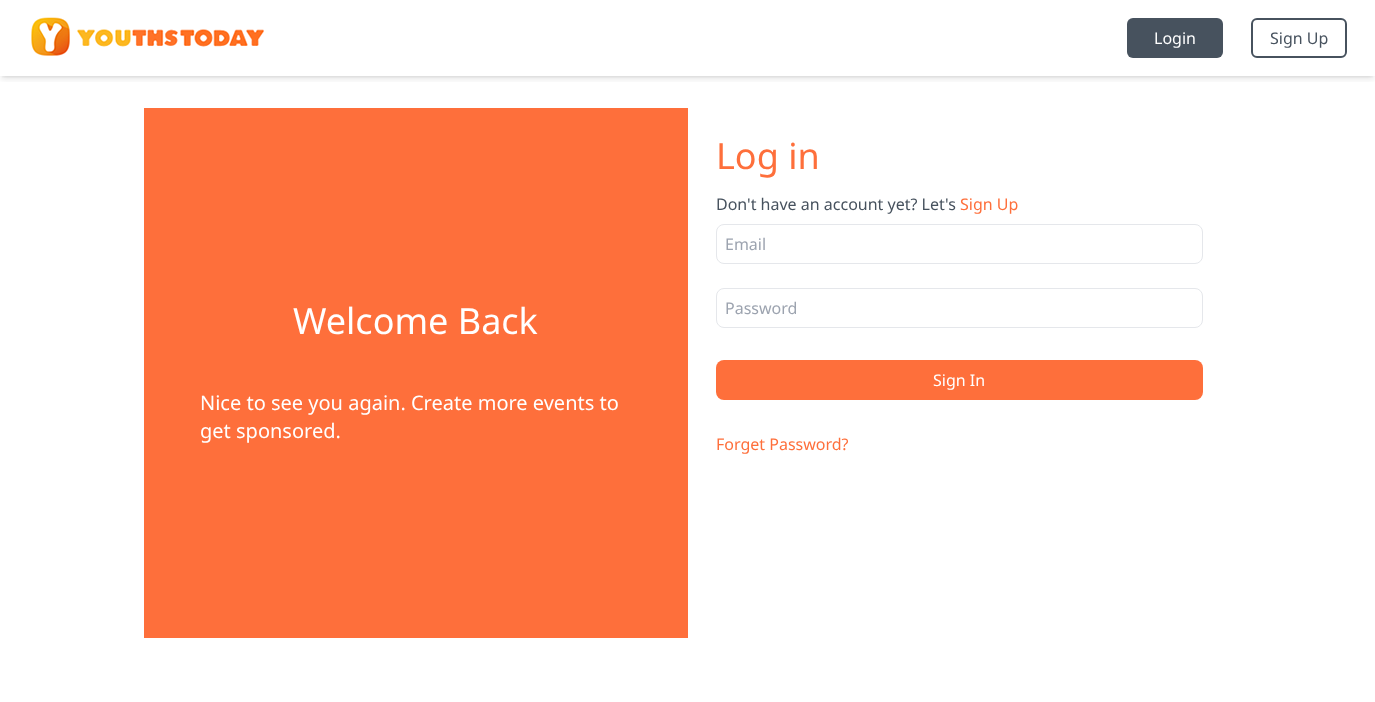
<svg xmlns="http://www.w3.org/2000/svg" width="1375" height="702">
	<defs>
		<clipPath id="clip1"><rect x="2" y="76" width="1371" height="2" /></clipPath>
		<clipPath id="clip2"><rect x="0" y="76" width="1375" height="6" /></clipPath>
	</defs>
	<rect width="100%" height="100%" fill="#FFFFFF" />
	<g clip-path="url(#clip1)">
		<rect x="2" y="4" width="1371" height="72" fill="#000000" fill-opacity="0.1" filter="blur(2px)" />
	</g>
	<g clip-path="url(#clip2)">
		<rect x="1" y="5" width="1373" height="74" fill="#000000" fill-opacity="0.1" filter="blur(3px)" />
	</g>
	<image x="31" y="17" width="233" height="39" href="assets/img1.png" />
	<rect x="1127" y="18" width="96" height="40" rx="6" fill="#47525E" />
	<text x="1154" y="44" font-family="Noto Sans" font-size="16" fill="#FFFFFF">Login</text>
	<rect x="1252" y="19" width="94" height="38" rx="5" fill="none" stroke="#47525E" stroke-width="2" />
	<text x="1270" y="44" font-family="Noto Sans" font-size="16" fill="#47525E">Sign Up</text>
	<rect x="144" y="108" width="544" height="530" fill="#FE6F3B" />
	<text x="293" y="334" font-family="Noto Sans" font-size="36" fill="#FFFFFF">Welcome Back</text>
	<g font-family="Noto Sans" font-size="20" fill="#FFFFFF">
		<text x="200" y="410">Nice to see you again. Create more events to</text>
		<text x="200" y="438">get sponsored.</text>
	</g>
	<text x="716" y="169" font-family="Noto Sans" font-size="36" fill="#FE6F3B">Log in</text>
	<text x="716" y="210" font-family="Noto Sans" font-size="16" fill="#47525E">Don't have an account yet? Let's</text>
	<text x="960" y="210" font-family="Noto Sans" font-size="16" fill="#FE6F3B">Sign Up</text>
	<rect x="716.5" y="224.5" width="486" height="39" rx="7.5" fill="none" stroke="#E5E7EB" />
	<text x="725" y="250" font-family="Noto Sans" font-size="16" fill="#9CA3AF">Email</text>
	<rect x="716.5" y="288.5" width="486" height="39" rx="7.5" fill="none" stroke="#E5E7EB" />
	<text x="725" y="314" font-family="Noto Sans" font-size="16" fill="#9CA3AF">Password</text>
	<rect x="716" y="360" width="487" height="40" rx="8" fill="#FE6F3B" />
	<text x="933" y="386" font-family="Noto Sans" font-size="16" fill="#FFFFFF">Sign In</text>
	<text x="716" y="450" font-family="Noto Sans" font-size="16" fill="#FE6F3B">Forget Password?</text>
</svg>
